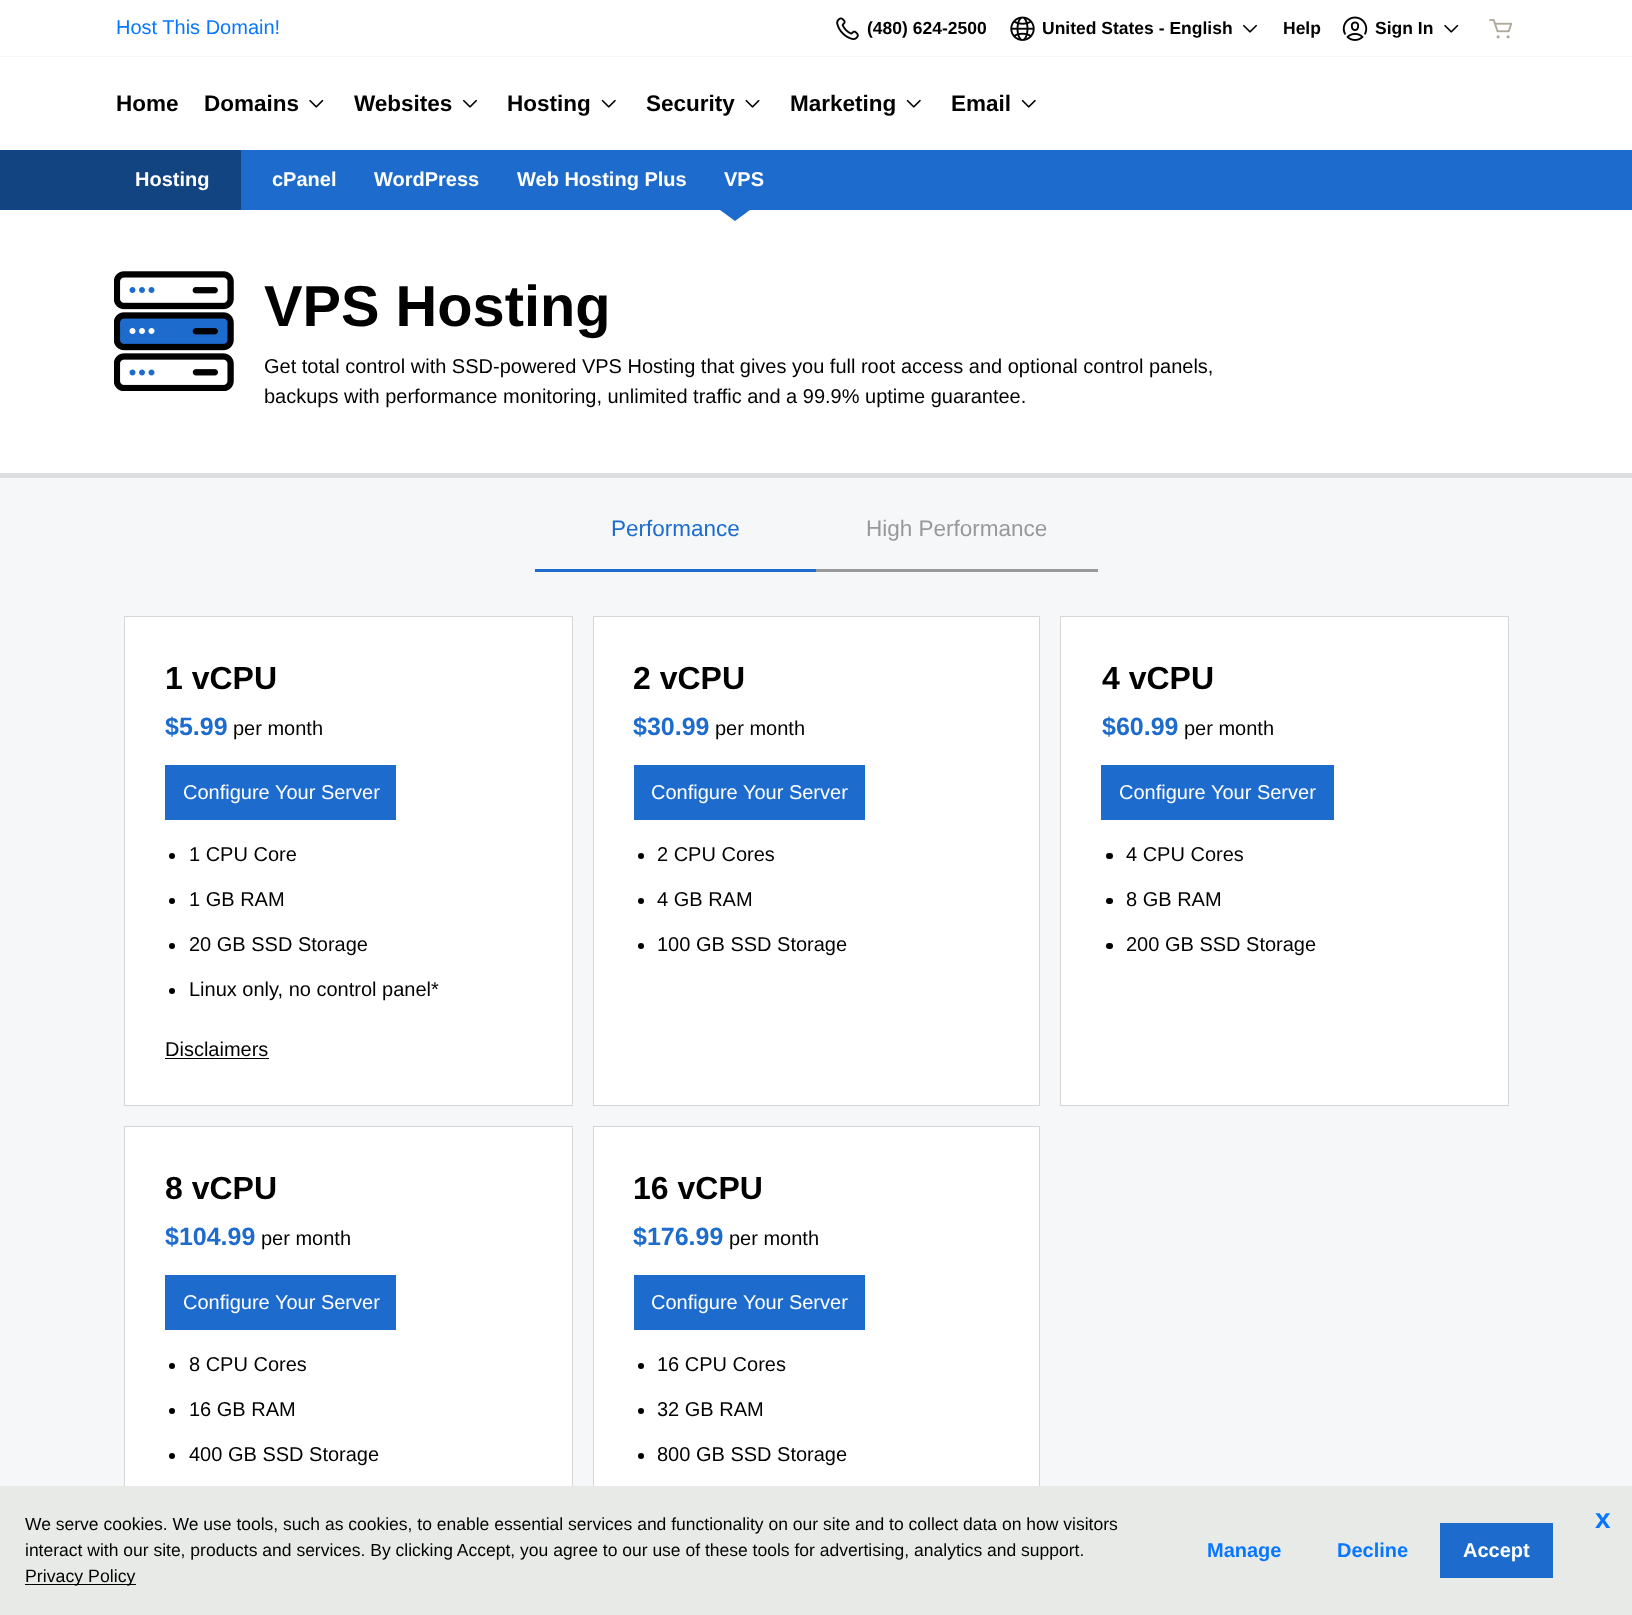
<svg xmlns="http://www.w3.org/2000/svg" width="1632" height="1615">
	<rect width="100%" height="100%" fill="#F5F7F8" />
	<rect x="0" y="0" width="1632" height="150" fill="#FFFFFF" />
	<rect x="0" y="56" width="1632" height="1" fill="#F5F7F8" />
	<text x="116" y="34" font-family="Liberation Sans" font-size="20" fill="#0877FF">Host This Domain!</text>
	<image x="836" y="17" width="23" height="23" href="assets/img1.png" />
	<text x="867" y="34" font-family="Liberation Sans" font-size="17.5" font-weight="700" fill="#000000">(480) 624-2500</text>
	<image x="1010" y="16" width="25" height="25" href="assets/img2.png" />
	<text x="1042" y="34" font-family="Liberation Sans" font-size="17.5" font-weight="700" fill="#000000">United States - English</text>
	<image x="1243" y="24" width="14" height="9" href="assets/img3.png" />
	<text x="1283" y="34" font-family="Liberation Sans" font-size="17.5" font-weight="700" fill="#000000">Help</text>
	<image x="1342" y="16" width="26" height="25" href="assets/img4.png" />
	<text x="1375" y="34" font-family="Liberation Sans" font-size="17.5" font-weight="700" fill="#000000">Sign In</text>
	<image x="1444" y="24" width="15" height="9" href="assets/img5.png" />
	<image x="1489" y="19" width="24" height="20" href="assets/img6.png" />
	<g font-family="Liberation Sans" font-size="22.5" font-weight="700" fill="#000000">
		<text x="116" y="111">Home</text>
		<text x="204" y="111">Domains</text>
	</g>
	<image x="309" y="99" width="15" height="9" href="assets/img5.png" />
	<text x="354" y="111" font-family="Liberation Sans" font-size="22.5" font-weight="700" fill="#000000">Websites</text>
	<image x="463" y="99" width="14" height="9" href="assets/img3.png" />
	<text x="507" y="111" font-family="Liberation Sans" font-size="22.5" font-weight="700" fill="#000000">Hosting</text>
	<image x="601" y="99" width="15" height="9" href="assets/img7.png" />
	<text x="646" y="111" font-family="Liberation Sans" font-size="22.5" font-weight="700" fill="#000000">Security</text>
	<image x="745" y="99" width="15" height="9" href="assets/img8.png" />
	<text x="790" y="111" font-family="Liberation Sans" font-size="22.5" font-weight="700" fill="#000000">Marketing</text>
	<image x="906" y="99" width="15" height="9" href="assets/img7.png" />
	<text x="951" y="111" font-family="Liberation Sans" font-size="22.5" font-weight="700" fill="#000000">Email</text>
	<image x="1021" y="99" width="15" height="9" href="assets/img7.png" />
	<rect x="241" y="150" width="1391" height="60" fill="#1D6CCD" />
	<rect x="0" y="150" width="241" height="60" fill="#124481" />
	<g font-family="Liberation Sans" font-size="20" font-weight="700" fill="#FFFFFF">
		<text x="135" y="186">Hosting</text>
		<text x="272" y="186">cPanel</text>
		<text x="374" y="186">WordPress</text>
		<text x="517" y="186">Web Hosting Plus</text>
		<text x="724" y="186">VPS</text>
	</g>
	<path d="M0 472V478H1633V215H1632V472Z" fill="#DDDEDF" />
	<rect x="0" y="210" width="1632" height="263" fill="#FFFFFF" />
	<path d="M720 210H750L735 221Z" fill="#1D6CCD" />
	<image x="114" y="271" width="120" height="120" href="assets/img9.png" />
	<text x="264" y="326" font-family="Liberation Sans" font-size="57.75" font-weight="700" fill="#000000">VPS Hosting</text>
	<g font-family="Liberation Sans" font-size="20" fill="#000000">
		<text x="264" y="373">Get total control with SSD-powered VPS Hosting that gives you full root access and optional control panels,</text>
		<text x="264" y="403">backups with performance monitoring, unlimited traffic and a 99.9% uptime guarantee.</text>
	</g>
	<rect x="535" y="569" width="281" height="3" fill="#1D6CCD" />
	<text x="611" y="536" font-family="Liberation Sans" font-size="22.5" fill="#1D6CCD">Performance</text>
	<rect x="816" y="569" width="282" height="3" fill="#999999" />
	<text x="866" y="536" font-family="Liberation Sans" font-size="22.5" fill="#999999">High Performance</text>
	<rect x="124.5" y="616.5" width="448" height="489" fill="#FFFFFF" stroke="#D6D6D6" />
	<text x="165" y="689" font-family="Liberation Sans" font-size="32" font-weight="700" fill="#000000">1 vCPU</text>
	<text x="165" y="735" font-family="Liberation Sans" font-size="25" font-weight="700" fill="#1D6CCD">$5.99</text>
	<text x="233" y="735" font-family="Liberation Sans" font-size="20" fill="#000000">per month</text>
	<rect x="165" y="765" width="231" height="55" fill="#1D6CCD" />
	<text x="183" y="799" font-family="Liberation Sans" font-size="20" fill="#FFFFFF">Configure Your Server</text>
	<circle cx="172" cy="856" r="3" fill="#000000" />
	<text x="189" y="861" font-family="Liberation Sans" font-size="20" fill="#000000">1 CPU Core</text>
	<circle cx="172" cy="901" r="3" fill="#000000" />
	<text x="189" y="906" font-family="Liberation Sans" font-size="20" fill="#000000">1 GB RAM</text>
	<circle cx="172" cy="946" r="3" fill="#000000" />
	<text x="189" y="951" font-family="Liberation Sans" font-size="20" fill="#000000">20 GB SSD Storage</text>
	<circle cx="172" cy="991" r="3" fill="#000000" />
	<g font-family="Liberation Sans" font-size="20" fill="#000000">
		<text x="189" y="996">Linux only, no control panel*</text>
		<text x="165" y="1056">Disclaimers</text>
	</g>
	<rect x="165" y="1058" width="104" height="1" fill="#000000" />
	<rect x="593.5" y="616.5" width="446" height="489" fill="#FFFFFF" stroke="#D6D6D6" />
	<text x="633" y="689" font-family="Liberation Sans" font-size="32" font-weight="700" fill="#000000">2 vCPU</text>
	<text x="633" y="735" font-family="Liberation Sans" font-size="25" font-weight="700" fill="#1D6CCD">$30.99</text>
	<text x="715" y="735" font-family="Liberation Sans" font-size="20" fill="#000000">per month</text>
	<rect x="634" y="765" width="231" height="55" fill="#1D6CCD" />
	<text x="651" y="799" font-family="Liberation Sans" font-size="20" fill="#FFFFFF">Configure Your Server</text>
	<circle cx="641" cy="856" r="3" fill="#000000" />
	<text x="657" y="861" font-family="Liberation Sans" font-size="20" fill="#000000">2 CPU Cores</text>
	<circle cx="641" cy="901" r="3" fill="#000000" />
	<text x="657" y="906" font-family="Liberation Sans" font-size="20" fill="#000000">4 GB RAM</text>
	<circle cx="641" cy="946" r="3" fill="#000000" />
	<text x="657" y="951" font-family="Liberation Sans" font-size="20" fill="#000000">100 GB SSD Storage</text>
	<rect x="1060.5" y="616.5" width="448" height="489" fill="#FFFFFF" stroke="#D6D6D6" />
	<text x="1102" y="689" font-family="Liberation Sans" font-size="32" font-weight="700" fill="#000000">4 vCPU</text>
	<text x="1102" y="735" font-family="Liberation Sans" font-size="25" font-weight="700" fill="#1D6CCD">$60.99</text>
	<text x="1184" y="735" font-family="Liberation Sans" font-size="20" fill="#000000">per month</text>
	<rect x="1101" y="765" width="233" height="55" fill="#1D6CCD" />
	<text x="1119" y="799" font-family="Liberation Sans" font-size="20" fill="#FFFFFF">Configure Your Server</text>
	<rect x="1106" y="853" width="7" height="6" rx="3" fill="#000000" />
	<text x="1126" y="861" font-family="Liberation Sans" font-size="20" fill="#000000">4 CPU Cores</text>
	<rect x="1106" y="898" width="7" height="6" rx="3" fill="#000000" />
	<text x="1126" y="906" font-family="Liberation Sans" font-size="20" fill="#000000">8 GB RAM</text>
	<rect x="1106" y="943" width="7" height="6" rx="3" fill="#000000" />
	<text x="1126" y="951" font-family="Liberation Sans" font-size="20" fill="#000000">200 GB SSD Storage</text>
	<rect x="125" y="1127" width="447" height="359" fill="#FFFFFF" />
	<rect x="124.5" y="1126.5" width="448" height="384" fill="none" stroke="#D6D6D6" />
	<text x="165" y="1199" font-family="Liberation Sans" font-size="32" font-weight="700" fill="#000000">8 vCPU</text>
	<text x="165" y="1245" font-family="Liberation Sans" font-size="25" font-weight="700" fill="#1D6CCD">$104.99</text>
	<text x="261" y="1245" font-family="Liberation Sans" font-size="20" fill="#000000">per month</text>
	<rect x="165" y="1275" width="231" height="55" fill="#1D6CCD" />
	<text x="183" y="1309" font-family="Liberation Sans" font-size="20" fill="#FFFFFF">Configure Your Server</text>
	<circle cx="172" cy="1366" r="3" fill="#000000" />
	<text x="189" y="1371" font-family="Liberation Sans" font-size="20" fill="#000000">8 CPU Cores</text>
	<circle cx="172" cy="1411" r="3" fill="#000000" />
	<text x="189" y="1416" font-family="Liberation Sans" font-size="20" fill="#000000">16 GB RAM</text>
	<circle cx="172" cy="1456" r="3" fill="#000000" />
	<text x="189" y="1461" font-family="Liberation Sans" font-size="20" fill="#000000">400 GB SSD Storage</text>
	<rect x="594" y="1127" width="445" height="359" fill="#FFFFFF" />
	<rect x="593.5" y="1126.5" width="446" height="384" fill="none" stroke="#D6D6D6" />
	<text x="633" y="1199" font-family="Liberation Sans" font-size="32" font-weight="700" fill="#000000">16 vCPU</text>
	<text x="633" y="1245" font-family="Liberation Sans" font-size="25" font-weight="700" fill="#1D6CCD">$176.99</text>
	<text x="729" y="1245" font-family="Liberation Sans" font-size="20" fill="#000000">per month</text>
	<rect x="634" y="1275" width="231" height="55" fill="#1D6CCD" />
	<text x="651" y="1309" font-family="Liberation Sans" font-size="20" fill="#FFFFFF">Configure Your Server</text>
	<circle cx="641" cy="1366" r="3" fill="#000000" />
	<text x="657" y="1371" font-family="Liberation Sans" font-size="20" fill="#000000">16 CPU Cores</text>
	<circle cx="641" cy="1411" r="3" fill="#000000" />
	<text x="657" y="1416" font-family="Liberation Sans" font-size="20" fill="#000000">32 GB RAM</text>
	<circle cx="641" cy="1456" r="3" fill="#000000" />
	<text x="657" y="1461" font-family="Liberation Sans" font-size="20" fill="#000000">800 GB SSD Storage</text>
	<rect x="0" y="1486" width="1632" height="129" fill="#E8EAE8" />
	<g font-family="Liberation Sans" font-size="17.5" fill="#000000">
		<text x="25" y="1530">We serve cookies. We use tools, such as cookies, to enable essential services and functionality on our site and to collect data on how visitors</text>
		<text x="25" y="1556">interact with our site, products and services. By clicking Accept, you agree to our use of these tools for advertising, analytics and support.</text>
	</g>
	<rect x="25" y="1584" width="111" height="1" fill="#000000" />
	<text x="25" y="1582" font-family="Liberation Sans" font-size="17.75" fill="#000000">Privacy Policy</text>
	<g font-family="Liberation Sans" font-size="20" font-weight="700" fill="#0877FF">
		<text x="1207" y="1557">Manage</text>
		<text x="1337" y="1557">Decline</text>
	</g>
	<rect x="1440" y="1523" width="113" height="55" fill="#1D6CCD" />
	<text x="1463" y="1557" font-family="Liberation Sans" font-size="20" font-weight="700" fill="#FFFFFF">Accept</text>
	<text x="1595" y="1528" font-family="Liberation Sans" font-size="28" font-weight="700" fill="#0877FF">x</text>
</svg>
